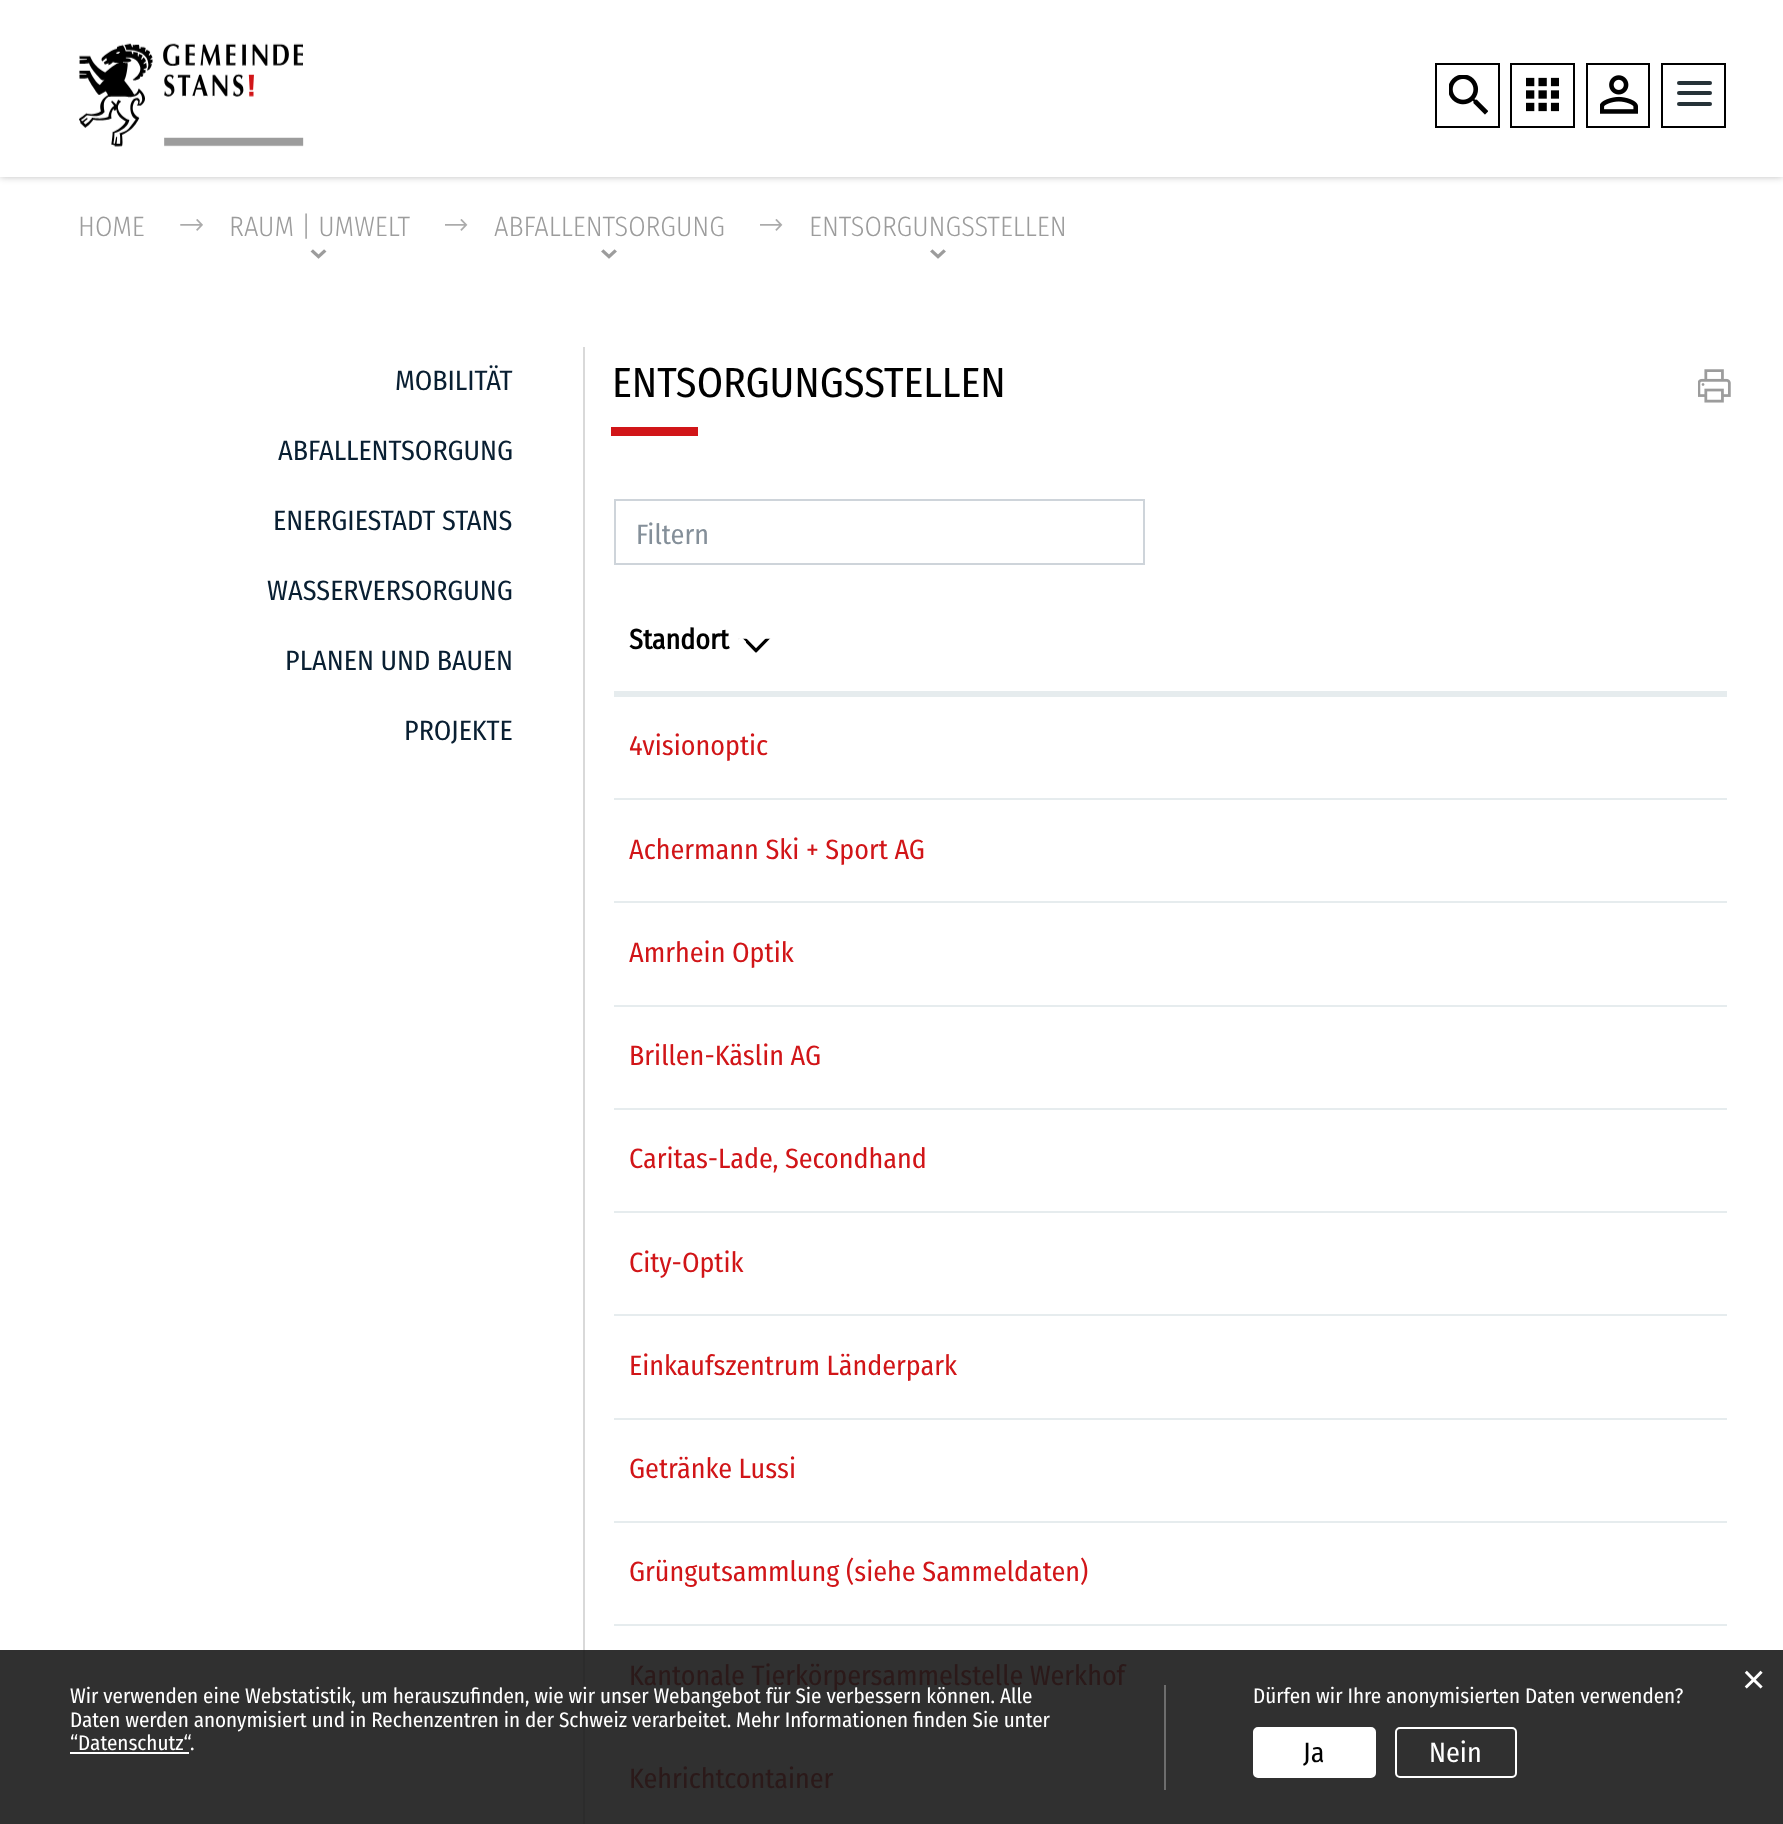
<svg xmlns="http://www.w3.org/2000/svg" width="1783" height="1824">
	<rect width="100%" height="100%" fill="#FFFFFF" />
	<rect x="0" y="1650" width="1783" height="174" fill="#303030" />
	<rect x="0" y="0" width="1783" height="177" fill="#000000" fill-opacity="0.25" filter="blur(3.5px)" />
	<rect x="0" y="0" width="1783" height="177" fill="#FFFFFF" />
	<image x="79" y="43" width="225" height="104" href="assets/img1.png" />
	<rect x="1436" y="64" width="63" height="63" fill="none" stroke="#000000" stroke-width="2" />
	<image x="1449" y="75" width="39" height="40" href="assets/img2.png" />
	<rect x="1511" y="64" width="63" height="63" fill="none" stroke="#000000" stroke-width="2" />
	<image x="1526" y="77" width="33" height="35" href="assets/img3.png" />
	<rect x="1587" y="64" width="62" height="63" fill="none" stroke="#000000" stroke-width="2" />
	<image x="1600" y="75" width="38" height="39" href="assets/img4.png" />
	<rect x="1662" y="64" width="63" height="63" fill="none" stroke="#000000" stroke-width="2" />
	<rect x="1677" y="81" width="35" height="4" rx="2" fill="#263238" />
	<rect x="1677" y="91" width="35" height="4" rx="2" fill="#263238" />
	<rect x="1677" y="102" width="35" height="4" rx="2" fill="#263238" />
	<text x="78" y="236" font-family="Fira Sans Condensed" font-size="28" font-weight="300" fill="#9C9C9C">HOME</text>
	<image x="180" y="219" width="23" height="12" href="assets/img5.png" />
	<text x="229" y="236" font-family="Fira Sans Condensed" font-size="28" font-weight="300" fill="#9C9C9C">RAUM | UMWELT</text>
	<image x="310" y="249" width="17" height="10" href="assets/img6.png" />
	<image x="445" y="219" width="23" height="12" href="assets/img7.png" />
	<text x="494" y="236" font-family="Fira Sans Condensed" font-size="28" font-weight="300" fill="#9C9C9C">ABFALLENTSORGUNG</text>
	<image x="601" y="249" width="16" height="10" href="assets/img8.png" />
	<image x="760" y="219" width="23" height="12" href="assets/img7.png" />
	<text x="809" y="236" font-family="Fira Sans Condensed" font-size="28" font-weight="300" fill="#9C9C9C">ENTSORGUNGSSTELLEN</text>
	<image x="930" y="249" width="16" height="10" href="assets/img8.png" />
	<rect x="583" y="347" width="2" height="1303" fill="#D9D9D9" />
	<rect x="583" y="1650" width="2" height="174" fill="#2C2C2C" />
	<g font-family="Fira Sans Condensed" font-size="28" fill="#091F32">
		<text x="395" y="390">MOBILITÄT</text>
		<text x="278" y="460">ABFALLENTSORGUNG</text>
		<text x="273" y="530">ENERGIESTADT STANS</text>
		<text x="267" y="600">WASSERVERSORGUNG</text>
		<text x="285" y="670">PLANEN UND BAUEN</text>
		<text x="404" y="740">PROJEKTE</text>
	</g>
	<text x="612" y="397" font-family="Fira Sans Condensed" font-size="42" fill="#000000">ENTSORGUNGSSTELLEN</text>
	<rect x="611" y="427" width="87" height="9" fill="#D11518" />
	<image x="1698" y="369" width="33" height="34" href="assets/img9.png" />
	<rect x="615" y="500" width="529" height="64" fill="none" stroke="#CED4DA" stroke-width="2" />
	<text x="636" y="544" font-family="Fira Sans Condensed" font-size="28" fill="#848F99">Filtern</text>
	<text x="629" y="649" font-family="Fira Sans Condensed" font-size="28" font-weight="700" fill="#000000">Standort</text>
	<image x="738" y="638" width="33" height="15" href="assets/img10.png" />
	<rect x="614" y="691" width="1113" height="6" fill="#E6ECEE" />
	<text x="629" y="755" font-family="Fira Sans Condensed" font-size="28" fill="#D11518">4visionoptic</text>
	<rect x="614" y="798" width="1113" height="2" fill="#E6ECEE" />
	<text x="629" y="859" font-family="Fira Sans Condensed" font-size="28" fill="#D11518">Achermann Ski + Sport AG</text>
	<rect x="614" y="901" width="1113" height="2" fill="#E6ECEE" />
	<text x="629" y="962" font-family="Fira Sans Condensed" font-size="28" fill="#D11518">Amrhein Optik</text>
	<rect x="614" y="1005" width="1113" height="2" fill="#E6ECEE" />
	<text x="629" y="1065" font-family="Fira Sans Condensed" font-size="28" fill="#D11518">Brillen-Käslin AG</text>
	<rect x="614" y="1108" width="1113" height="2" fill="#E6ECEE" />
	<text x="629" y="1168" font-family="Fira Sans Condensed" font-size="28" fill="#D11518">Caritas-Lade, Secondhand</text>
	<rect x="614" y="1211" width="1113" height="2" fill="#E6ECEE" />
	<text x="629" y="1272" font-family="Fira Sans Condensed" font-size="28" fill="#D11518">City-Optik</text>
	<rect x="614" y="1314" width="1113" height="2" fill="#E6ECEE" />
	<text x="629" y="1375" font-family="Fira Sans Condensed" font-size="28" fill="#D11518">Einkaufszentrum Länderpark</text>
	<rect x="614" y="1418" width="1113" height="2" fill="#E6ECEE" />
	<text x="629" y="1478" font-family="Fira Sans Condensed" font-size="28" fill="#D11518">Getränke Lussi</text>
	<rect x="614" y="1521" width="1113" height="2" fill="#E6ECEE" />
	<text x="629" y="1581" font-family="Fira Sans Condensed" font-size="28" fill="#D11518">Grüngutsammlung (siehe Sammeldaten)</text>
	<rect x="614" y="1624" width="1113" height="2" fill="#E6ECEE" />
	<g font-family="Fira Sans Condensed" font-size="28" fill="#2B1919">
		<text x="629" y="1685">Kantonale Tierkörpersammelstelle Werkhof</text>
		<text x="629" y="1788">Kehrichtcontainer</text>
	</g>
	<text x="1742" y="1693" font-family="Liberation Sans" font-size="40" fill="#FFFFFF">×</text>
	<rect x="1164" y="1685" width="2" height="105" fill="#6D6D6D" />
	<g font-family="Fira Sans Condensed" font-size="21" fill="#FFFFFF">
		<text x="70" y="1703">Wir verwenden eine Webstatistik, um herauszufinden, wie wir unser Webangebot für Sie verbessern können. Alle</text>
		<text x="70" y="1727">Daten werden anonymisiert und in Rechenzentren in der Schweiz verarbeitet. Mehr Informationen finden Sie unter</text>
		<text x="70" y="1750">“Datenschutz“</text>
	</g>
	<rect x="70" y="1752" width="119" height="2" fill="#FFFFFF" />
	<g font-family="Fira Sans Condensed" font-size="21" fill="#FFFFFF">
		<text x="190" y="1750">.</text>
		<text x="1253" y="1703">Dürfen wir Ihre anonymisierten Daten verwenden?</text>
	</g>
	<rect x="1254" y="1728" width="121" height="49" rx="4" fill="#FFFFFF" stroke="#FFFFFF" stroke-width="2" />
	<text x="1303" y="1762" font-family="Fira Sans Condensed" font-size="28" fill="#000000">Ja</text>
	<rect x="1396" y="1728" width="120" height="49" rx="4" fill="none" stroke="#FFFFFF" stroke-width="2" />
	<text x="1429" y="1762" font-family="Fira Sans Condensed" font-size="28" fill="#FFFFFF">Nein</text>
</svg>
